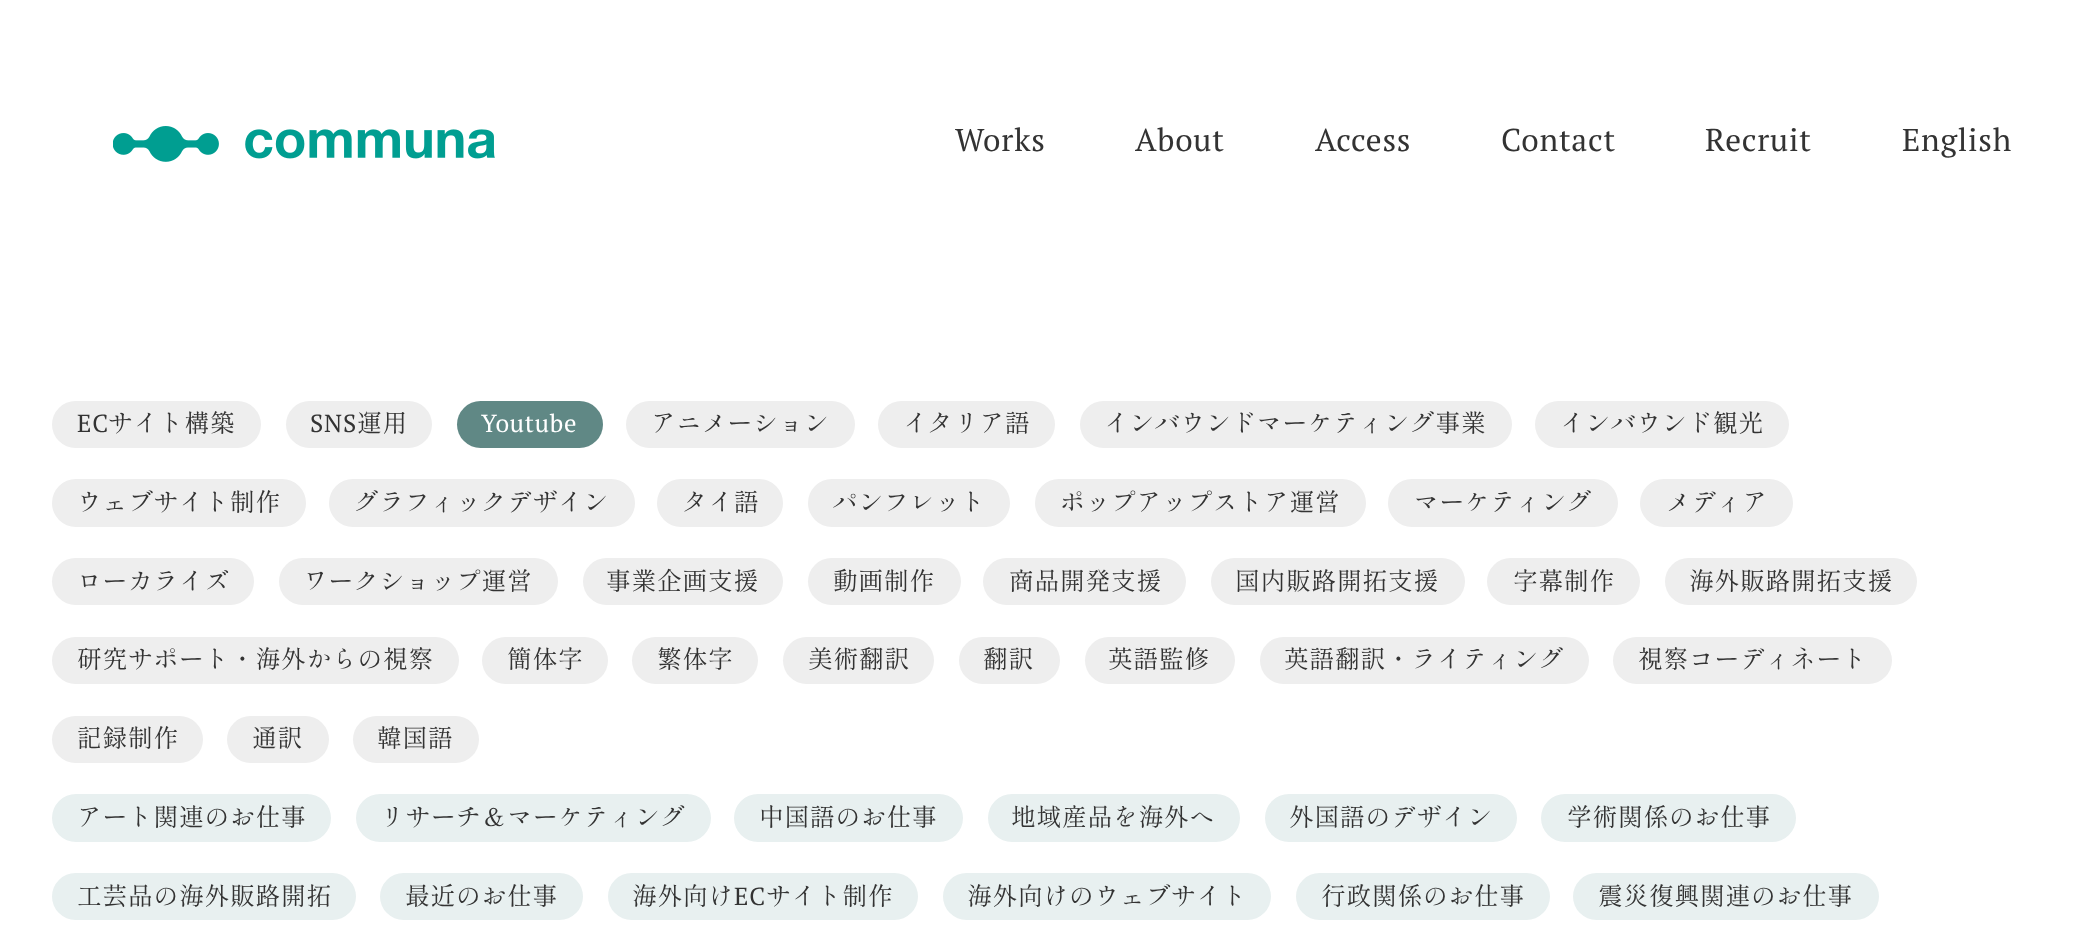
<svg xmlns="http://www.w3.org/2000/svg" width="2078" height="951">
	<rect width="100%" height="100%" fill="#FFFFFF" />
	<image x="113" y="126" width="382" height="36" href="assets/img1.png" />
	<g font-family="PT Serif" font-size="31.5" letter-spacing="0.75" fill="#333333">
		<text x="955" y="151">Works</text>
		<text x="1135" y="151">About</text>
		<text x="1315" y="151">Access</text>
		<text x="1501" y="151">Contact</text>
		<text x="1705" y="151">Recruit</text>
		<text x="1902" y="151">English</text>
	</g>
	<rect x="52" y="401" width="209" height="47" rx="23.5" fill="#EEEEEE" />
	<text x="77" y="432" font-family="PT Serif" font-size="24.75" letter-spacing="0.75" fill="#333333">EC</text>
	<text x="108" y="432" font-family="Shippori Mincho" font-size="24.75" letter-spacing="0.75" fill="#333333">サイト構築</text>
	<rect x="286" y="401" width="146" height="47" rx="23.5" fill="#EEEEEE" />
	<text x="310" y="432" font-family="PT Serif" font-size="24.75" letter-spacing="0.75" fill="#333333">SNS</text>
	<text x="357" y="432" font-family="Shippori Mincho" font-size="24.75" letter-spacing="0.75" fill="#333333">運用</text>
	<rect x="457" y="401" width="146" height="47" rx="23.5" fill="#608885" />
	<text x="481" y="432" font-family="PT Serif" font-size="24.75" letter-spacing="0.75" fill="#FFFFFF">Youtube</text>
	<rect x="626" y="401" width="229" height="47" rx="23.5" fill="#EEEEEE" />
	<text x="651" y="432" font-family="Shippori Mincho" font-size="24.75" letter-spacing="0.75" fill="#333333">アニメーション</text>
	<rect x="878" y="401" width="177" height="47" rx="23.5" fill="#EEEEEE" />
	<text x="903" y="432" font-family="Shippori Mincho" font-size="24.75" letter-spacing="0.75" fill="#333333">イタリア語</text>
	<rect x="1080" y="401" width="432" height="47" rx="23.5" fill="#EEEEEE" />
	<text x="1104" y="432" font-family="Shippori Mincho" font-size="24.75" letter-spacing="0.75" fill="#333333">インバウンドマーケティング事業</text>
	<rect x="1535" y="401" width="254" height="47" rx="23.5" fill="#EEEEEE" />
	<text x="1560" y="432" font-family="Shippori Mincho" font-size="24.75" letter-spacing="0.75" fill="#333333">インバウンド観光</text>
	<rect x="52" y="479" width="254" height="48" rx="24" fill="#EEEEEE" />
	<text x="77" y="511" font-family="Shippori Mincho" font-size="24.75" letter-spacing="0.75" fill="#333333">ウェブサイト制作</text>
	<rect x="329" y="479" width="306" height="48" rx="24" fill="#EEEEEE" />
	<text x="354" y="511" font-family="Shippori Mincho" font-size="24.75" letter-spacing="0.75" fill="#333333">グラフィックデザイン</text>
	<rect x="657" y="479" width="126" height="48" rx="24" fill="#EEEEEE" />
	<text x="683" y="511" font-family="Shippori Mincho" font-size="24.75" letter-spacing="0.75" fill="#333333">タイ語</text>
	<rect x="808" y="479" width="202" height="48" rx="24" fill="#EEEEEE" />
	<text x="833" y="511" font-family="Shippori Mincho" font-size="24.75" letter-spacing="0.75" fill="#333333">パンフレット</text>
	<rect x="1035" y="479" width="331" height="48" rx="24" fill="#EEEEEE" />
	<text x="1060" y="511" font-family="Shippori Mincho" font-size="24.75" letter-spacing="0.75" fill="#333333">ポップアップストア運営</text>
	<rect x="1388" y="479" width="230" height="48" rx="24" fill="#EEEEEE" />
	<text x="1414" y="511" font-family="Shippori Mincho" font-size="24.75" letter-spacing="0.75" fill="#333333">マーケティング</text>
	<rect x="1640" y="479" width="153" height="48" rx="24" fill="#EEEEEE" />
	<text x="1666" y="511" font-family="Shippori Mincho" font-size="24.75" letter-spacing="0.75" fill="#333333">メディア</text>
	<rect x="52" y="558" width="202" height="47" rx="23.5" fill="#EEEEEE" />
	<text x="77" y="590" font-family="Shippori Mincho" font-size="24.75" letter-spacing="0.75" fill="#333333">ローカライズ</text>
	<rect x="279" y="558" width="279" height="47" rx="23.5" fill="#EEEEEE" />
	<text x="303" y="590" font-family="Shippori Mincho" font-size="24.75" letter-spacing="0.75" fill="#333333">ワークショップ運営</text>
	<rect x="583" y="558" width="200" height="47" rx="23.5" fill="#EEEEEE" />
	<text x="606" y="590" font-family="Shippori Mincho" font-size="24.75" letter-spacing="0.75" fill="#333333">事業企画支援</text>
	<rect x="808" y="558" width="153" height="47" rx="23.5" fill="#EEEEEE" />
	<text x="833" y="590" font-family="Shippori Mincho" font-size="24.75" letter-spacing="0.75" fill="#333333">動画制作</text>
	<rect x="983" y="558" width="203" height="47" rx="23.5" fill="#EEEEEE" />
	<text x="1009" y="590" font-family="Shippori Mincho" font-size="24.75" letter-spacing="0.75" fill="#333333">商品開発支援</text>
	<rect x="1211" y="558" width="254" height="47" rx="23.5" fill="#EEEEEE" />
	<text x="1235" y="590" font-family="Shippori Mincho" font-size="24.75" letter-spacing="0.75" fill="#333333">国内販路開拓支援</text>
	<rect x="1487" y="558" width="153" height="47" rx="23.5" fill="#EEEEEE" />
	<text x="1513" y="590" font-family="Shippori Mincho" font-size="24.75" letter-spacing="0.75" fill="#333333">字幕制作</text>
	<rect x="1665" y="558" width="252" height="47" rx="23.5" fill="#EEEEEE" />
	<text x="1689" y="590" font-family="Shippori Mincho" font-size="24.75" letter-spacing="0.75" fill="#333333">海外販路開拓支援</text>
	<rect x="52" y="637" width="407" height="47" rx="23.5" fill="#EEEEEE" />
	<text x="77" y="668" font-family="Shippori Mincho" font-size="24.75" letter-spacing="0.75" fill="#333333">研究サポート・海外からの視察</text>
	<rect x="482" y="637" width="126" height="47" rx="23.5" fill="#EEEEEE" />
	<text x="507" y="668" font-family="Shippori Mincho" font-size="24.75" letter-spacing="0.75" fill="#333333">簡体字</text>
	<rect x="632" y="637" width="126" height="47" rx="23.5" fill="#EEEEEE" />
	<text x="657" y="668" font-family="Shippori Mincho" font-size="24.75" letter-spacing="0.75" fill="#333333">繁体字</text>
	<rect x="783" y="637" width="151" height="47" rx="23.5" fill="#EEEEEE" />
	<text x="808" y="668" font-family="Shippori Mincho" font-size="24.75" letter-spacing="0.75" fill="#333333">美術翻訳</text>
	<rect x="959" y="637" width="101" height="47" rx="23.5" fill="#EEEEEE" />
	<text x="983" y="668" font-family="Shippori Mincho" font-size="24.75" letter-spacing="0.75" fill="#333333">翻訳</text>
	<rect x="1085" y="637" width="150" height="47" rx="23.5" fill="#EEEEEE" />
	<text x="1108" y="668" font-family="Shippori Mincho" font-size="24.75" letter-spacing="0.75" fill="#333333">英語監修</text>
	<rect x="1260" y="637" width="329" height="47" rx="23.5" fill="#EEEEEE" />
	<text x="1284" y="668" font-family="Shippori Mincho" font-size="24.75" letter-spacing="0.75" fill="#333333">英語翻訳・ライティング</text>
	<rect x="1613" y="637" width="279" height="47" rx="23.5" fill="#EEEEEE" />
	<text x="1638" y="668" font-family="Shippori Mincho" font-size="24.75" letter-spacing="0.75" fill="#333333">視察コーディネート</text>
	<rect x="52" y="716" width="151" height="47" rx="23.5" fill="#EEEEEE" />
	<text x="77" y="747" font-family="Shippori Mincho" font-size="24.75" letter-spacing="0.75" fill="#333333">記録制作</text>
	<rect x="227" y="716" width="102" height="47" rx="23.5" fill="#EEEEEE" />
	<text x="252" y="747" font-family="Shippori Mincho" font-size="24.75" letter-spacing="0.75" fill="#333333">通訳</text>
	<rect x="353" y="716" width="126" height="47" rx="23.5" fill="#EEEEEE" />
	<text x="377" y="747" font-family="Shippori Mincho" font-size="24.75" letter-spacing="0.75" fill="#333333">韓国語</text>
	<rect x="52" y="794" width="279" height="48" rx="24" fill="#E8F0F0" />
	<text x="77" y="826" font-family="Shippori Mincho" font-size="24.75" letter-spacing="0.75" fill="#333333">アート関連のお仕事</text>
	<rect x="356" y="794" width="355" height="48" rx="24" fill="#E8F0F0" />
	<text x="380" y="826" font-family="Shippori Mincho" font-size="24.75" letter-spacing="0.75" fill="#333333">リサーチ＆マーケティング</text>
	<rect x="734" y="794" width="229" height="48" rx="24" fill="#E8F0F0" />
	<text x="759" y="826" font-family="Shippori Mincho" font-size="24.75" letter-spacing="0.75" fill="#333333">中国語のお仕事</text>
	<rect x="988" y="794" width="252" height="48" rx="24" fill="#E8F0F0" />
	<text x="1011" y="826" font-family="Shippori Mincho" font-size="24.75" letter-spacing="0.75" fill="#333333">地域産品を海外へ</text>
	<rect x="1265" y="794" width="252" height="48" rx="24" fill="#E8F0F0" />
	<text x="1289" y="826" font-family="Shippori Mincho" font-size="24.75" letter-spacing="0.75" fill="#333333">外国語のデザイン</text>
	<rect x="1541" y="794" width="255" height="48" rx="24" fill="#E8F0F0" />
	<text x="1567" y="826" font-family="Shippori Mincho" font-size="24.75" letter-spacing="0.75" fill="#333333">学術関係のお仕事</text>
	<rect x="52" y="873" width="304" height="47" rx="23.5" fill="#E8F0F0" />
	<text x="77" y="905" font-family="Shippori Mincho" font-size="24.75" letter-spacing="0.75" fill="#333333">工芸品の海外販路開拓</text>
	<rect x="380" y="873" width="203" height="47" rx="23.5" fill="#E8F0F0" />
	<text x="405" y="905" font-family="Shippori Mincho" font-size="24.75" letter-spacing="0.75" fill="#333333">最近のお仕事</text>
	<rect x="608" y="873" width="310" height="47" rx="23.5" fill="#E8F0F0" />
	<text x="632" y="905" font-family="Shippori Mincho" font-size="24.75" letter-spacing="0.75" fill="#333333">海外向け</text>
	<text x="734" y="905" font-family="PT Serif" font-size="24.75" letter-spacing="0.75" fill="#333333">EC</text>
	<text x="766" y="905" font-family="Shippori Mincho" font-size="24.75" letter-spacing="0.75" fill="#333333">サイト制作</text>
	<rect x="943" y="873" width="328" height="47" rx="23.5" fill="#E8F0F0" />
	<text x="967" y="905" font-family="Shippori Mincho" font-size="24.75" letter-spacing="0.75" fill="#333333">海外向けのウェブサイト</text>
	<rect x="1296" y="873" width="254" height="47" rx="23.5" fill="#E8F0F0" />
	<text x="1321" y="905" font-family="Shippori Mincho" font-size="24.75" letter-spacing="0.75" fill="#333333">行政関係のお仕事</text>
	<rect x="1573" y="873" width="306" height="47" rx="23.5" fill="#E8F0F0" />
	<text x="1598" y="905" font-family="Shippori Mincho" font-size="24.75" letter-spacing="0.75" fill="#333333">震災復興関連のお仕事</text>
</svg>
